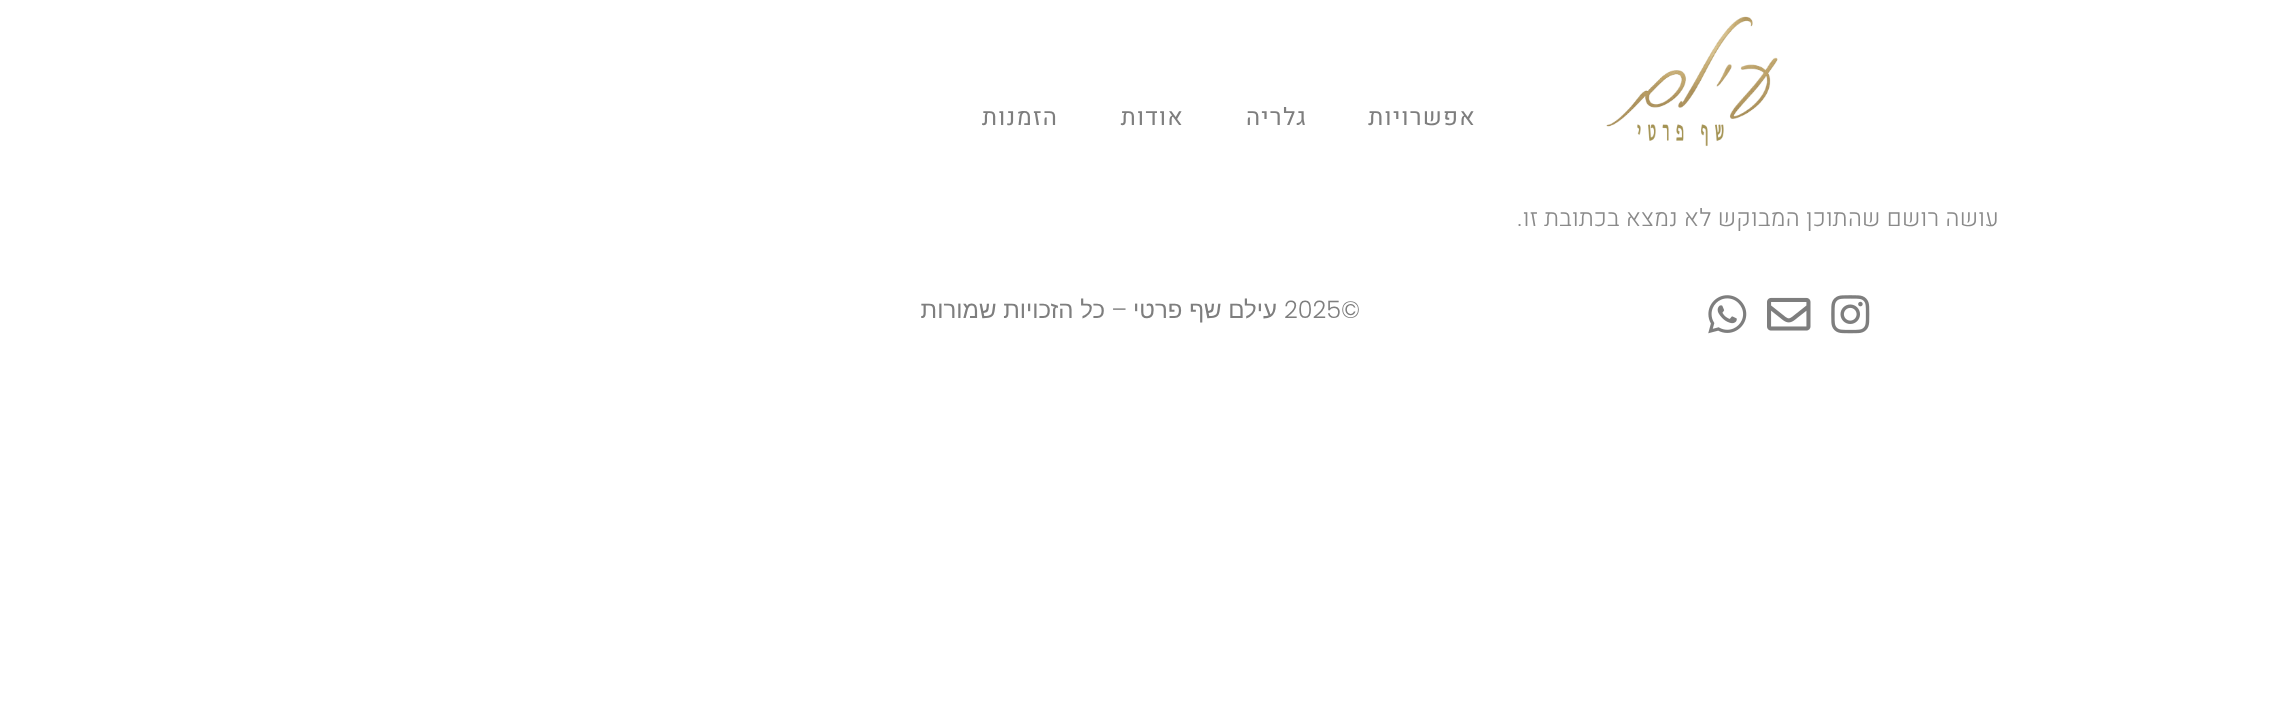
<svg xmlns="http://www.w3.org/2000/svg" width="2287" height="706">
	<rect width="100%" height="100%" fill="#FFFFFF" />
	<image x="1606" y="16" width="172" height="131" href="assets/img1.png" />
	<g font-family="Heebo" font-size="24" letter-spacing="1.25" direction="rtl" fill="#7E7E7E">
		<text x="1476" y="125">אפשרויות</text>
		<text x="1307" y="125">גלריה</text>
		<text x="1184" y="125">אודות</text>
		<text x="1058" y="125">הזמנות</text>
	</g>
	<text x="1999" y="226" font-family="Heebo" font-size="24" font-weight="300" letter-spacing="0.25" direction="rtl" fill="#8A8A8A">עושה רושם שהתוכן המבוקש לא נמצא בכתובת זו.</text>
	<image x="1831" y="295" width="39" height="39" href="assets/img2.png" />
	<image x="1767" y="297" width="44" height="34" href="assets/img3.png" />
	<image x="1708" y="295" width="39" height="39" href="assets/img4.png" />
	<text x="1284" y="318" font-family="Poppins" font-size="24" font-weight="300" fill="#7E7E7E">2025©</text>
	<text x="1277" y="318" font-family="Liberation Sans" font-size="24" direction="rtl" fill="#7E7E7E">עילם שף פרטי</text>
	<text x="1127" y="318" font-family="Poppins" font-size="24" font-weight="300" direction="rtl" fill="#7E7E7E">–</text>
	<text x="1105" y="318" font-family="Liberation Sans" font-size="24" direction="rtl" fill="#7E7E7E">כל הזכויות שמורות</text>
</svg>
